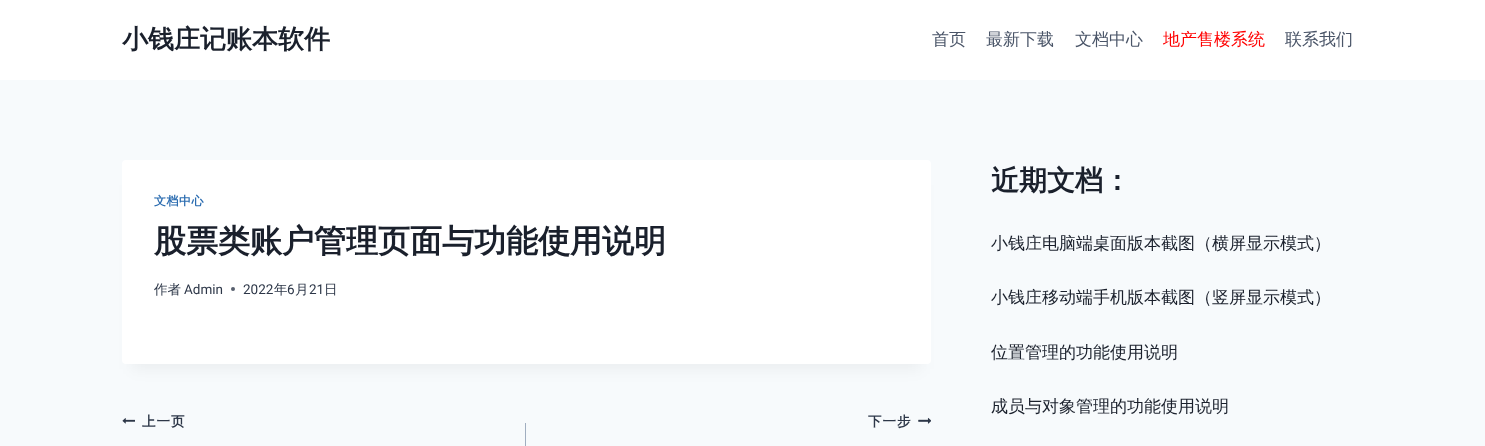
<svg xmlns="http://www.w3.org/2000/svg" width="1485" height="446">
	<rect width="100%" height="100%" fill="#F7FAFC" />
	<rect x="0" y="0" width="1485" height="80" fill="#FFFFFF" />
	<text x="122" y="48" font-family="WenQuanYi Zen Hei" font-size="26" font-weight="700" fill="#1A202C">小钱庄记账本软件</text>
	<g font-family="WenQuanYi Zen Hei" font-size="17" font-weight="500" fill="#4A5568">
		<text x="932" y="45">首页</text>
		<text x="986" y="45">最新下载</text>
		<text x="1075" y="45">文档中心</text>
	</g>
	<text x="1163" y="45" font-family="WenQuanYi Zen Hei" font-size="17" font-weight="500" fill="#FF0000">地产售楼系统</text>
	<text x="1285" y="45" font-family="WenQuanYi Zen Hei" font-size="17" font-weight="500" fill="#4A5568">联系我们</text>
	<rect x="132" y="185" width="789" height="184" fill="#000000" fill-opacity="0.05" filter="blur(7.5px)" />
	<rect x="122" y="160" width="809" height="204" rx="4" fill="#FFFFFF" />
	<text x="154" y="205" font-family="WenQuanYi Zen Hei" font-size="12" font-weight="700" letter-spacing="0.5" fill="#2B6CB0">文档中心</text>
	<text x="154" y="252" font-family="WenQuanYi Zen Hei" font-size="32" font-weight="700" fill="#1A202C">股票类账户管理页面与功能使用说明</text>
	<text x="154" y="294" font-family="WenQuanYi Zen Hei" font-size="13.5" font-weight="500" fill="#2D3748">作者</text>
	<text x="184" y="294" font-family="Roboto" font-size="13.5" fill="#2D3748">Admin</text>
	<circle cx="233" cy="289" r="2" fill="#575F6D" />
	<text x="243" y="294" font-family="Roboto" font-size="13.5" fill="#2D3748">2022</text>
	<text x="274" y="294" font-family="WenQuanYi Zen Hei" font-size="13.5" font-weight="500" fill="#2D3748">年</text>
	<text x="287" y="294" font-family="Roboto" font-size="13.5" fill="#2D3748">6</text>
	<text x="295" y="294" font-family="WenQuanYi Zen Hei" font-size="13.5" font-weight="500" fill="#2D3748">月</text>
	<text x="309" y="294" font-family="Roboto" font-size="13.5" fill="#2D3748">21</text>
	<text x="324" y="294" font-family="WenQuanYi Zen Hei" font-size="13.5" font-weight="500" fill="#2D3748">日</text>
	<image x="122" y="418" width="13" height="6" href="assets/img1.png" />
	<text x="142" y="426" font-family="WenQuanYi Zen Hei" font-size="13.5" font-weight="700" letter-spacing="1" fill="#2D3748">上一页</text>
	<rect x="525" y="423" width="1" height="23" fill="#A0AEC0" />
	<text x="868" y="426" font-family="WenQuanYi Zen Hei" font-size="13.5" font-weight="700" letter-spacing="1" fill="#2D3748">下一步</text>
	<image x="918" y="417" width="13" height="7" href="assets/img2.png" />
	<text x="991" y="190" font-family="WenQuanYi Zen Hei" font-size="28" font-weight="700" fill="#1A202C">近期文档：</text>
	<g font-family="WenQuanYi Zen Hei" font-size="17" font-weight="500" fill="#1A202C">
		<text x="991" y="249">小钱庄电脑端桌面版本截图（横屏显示模式）</text>
		<text x="991" y="303">小钱庄移动端手机版本截图（竖屏显示模式）</text>
		<text x="991" y="358">位置管理的功能使用说明</text>
		<text x="991" y="412">成员与对象管理的功能使用说明</text>
	</g>
</svg>
